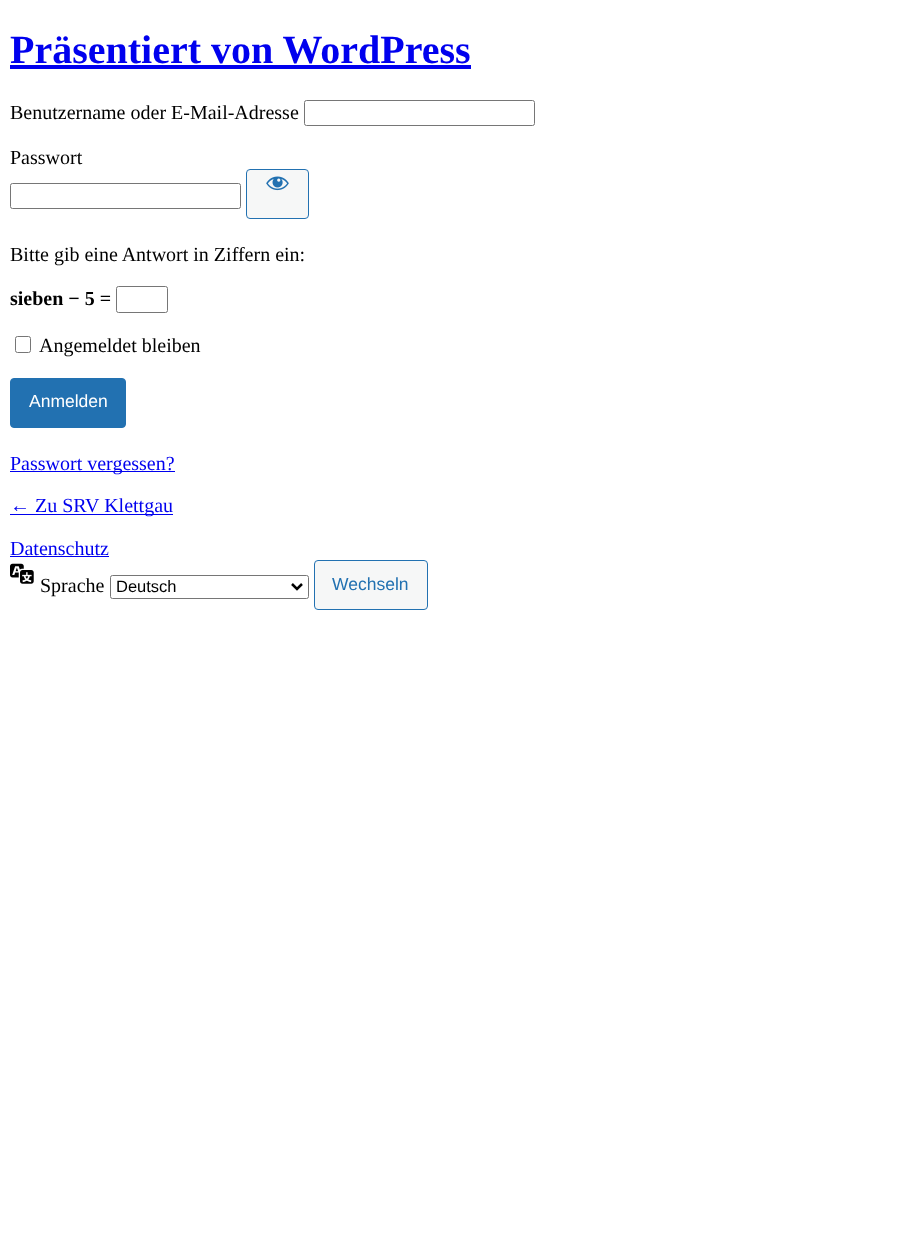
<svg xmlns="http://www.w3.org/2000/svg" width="912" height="1260">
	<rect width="100%" height="100%" fill="#FFFFFF" />
	<text x="10" y="63" font-family="Liberation Serif" font-size="40" font-weight="700" fill="#0000EE">Präsentiert von WordPress</text>
	<rect x="10" y="65" width="461" height="4" fill="#0000EE" />
	<text x="10" y="119" font-family="Liberation Serif" font-size="20" fill="#000000">Benutzername oder E-Mail-Adresse</text>
	<rect x="304.5" y="100.5" width="230" height="25" rx="2" fill="none" stroke="#767676" />
	<text x="10" y="164" font-family="Liberation Serif" font-size="20" fill="#000000">Passwort</text>
	<rect x="10.5" y="183.5" width="230" height="25" rx="2" fill="none" stroke="#767676" />
	<rect x="246.5" y="169.5" width="62" height="49" rx="3.5" fill="#F6F7F7" stroke="#2271B1" />
	<image x="266" y="176" width="23" height="15" href="assets/img1.png" />
	<text x="10" y="261" font-family="Liberation Serif" font-size="20" fill="#000000">Bitte gib eine Antwort in Ziffern ein:</text>
	<text x="10" y="305" font-family="Liberation Serif" font-size="20" font-weight="700" fill="#000000">sieben − 5 =</text>
	<rect x="116.5" y="286.5" width="51" height="26" rx="2" fill="none" stroke="#767676" />
	<rect x="15.5" y="336.5" width="15" height="16" rx="2" fill="none" stroke="#767676" />
	<text x="39" y="352" font-family="Liberation Serif" font-size="20" fill="#000000">Angemeldet bleiben</text>
	<rect x="10.5" y="378.5" width="115" height="49" rx="3.5" fill="#2271B1" stroke="#2271B1" />
	<text x="29" y="407" font-family="Liberation Sans" font-size="17.5" fill="#FFFFFF">Anmelden</text>
	<rect x="10" y="471" width="165" height="1" fill="#0000EE" />
	<text x="10" y="470" font-family="Liberation Serif" font-size="20" fill="#0000EE">Passwort vergessen?</text>
	<rect x="10" y="514" width="163" height="1" fill="#0000EE" />
	<g font-family="Liberation Serif" font-size="20" fill="#0000EE">
		<text x="10" y="512">← Zu SRV Klettgau</text>
		<text x="10" y="555">Datenschutz</text>
	</g>
	<rect x="10" y="556" width="99" height="1" fill="#0000EE" />
	<image x="10" y="563" width="24" height="21" href="assets/img2.png" />
	<text x="40" y="592" font-family="Liberation Serif" font-size="20" fill="#000000">Sprache</text>
	<rect x="110.5" y="575.5" width="198" height="23" rx="2" fill="none" stroke="#767676" />
	<path d="M292 584L297 589L302 584" fill="none" stroke="#000000" stroke-width="2.5" />
	<text x="116" y="592" font-family="Liberation Sans" font-size="16.5" fill="#000000">Deutsch</text>
	<rect x="314.5" y="560.5" width="113" height="49" rx="3.5" fill="#F6F7F7" stroke="#2271B1" />
	<text x="332" y="590" font-family="Liberation Sans" font-size="17.5" fill="#2271B1">Wechseln</text>
</svg>
